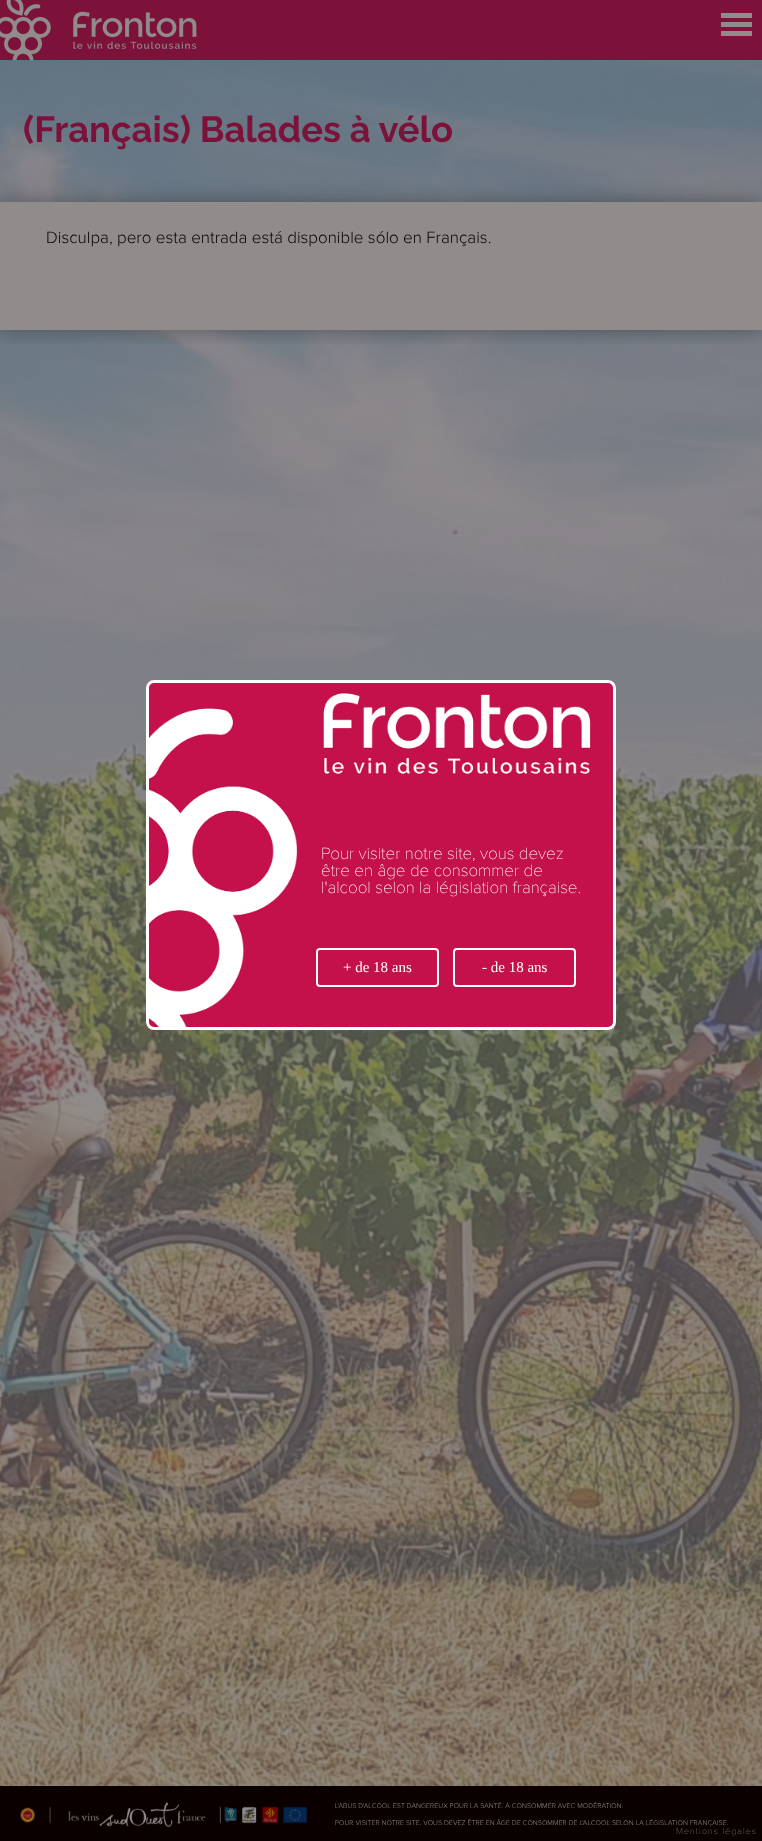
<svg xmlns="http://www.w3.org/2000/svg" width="762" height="1841">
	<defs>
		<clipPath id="clip1"><rect x="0" y="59" width="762" height="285" /></clipPath>
	</defs>
	<rect width="100%" height="100%" fill="#918C8C" />
	<rect x="0" y="0" width="762" height="60" fill="#7C113A" />
	<image x="0" y="0" width="197" height="60" href="assets/img1.png" />
	<image x="721" y="13" width="31" height="23" href="assets/img2.png" />
	<image x="0" y="60" width="762" height="1726" href="assets/img3.png" />
	<text x="23" y="142" font-family="Raleway" font-size="36.4" font-weight="700" fill="#7C113A">(Français) Balades à vélo</text>
	<g clip-path="url(#clip1)">
		<rect x="0" y="202" width="762" height="128" fill="#050000" fill-opacity="0.33" filter="blur(10px)" />
	</g>
	<rect x="0" y="202" width="762" height="128" fill="#918C8C" />
	<text x="46" y="243" font-family="Proxima Nova" font-size="17" font-weight="300" fill="#0B0000">Disculpa, pero esta entrada está disponible sólo en Français.</text>
	<rect x="146" y="680" width="470" height="350" rx="8" fill="#C4114B" />
	<image x="146" y="683" width="445" height="344" href="assets/img4.png" />
	<rect x="147.5" y="681.5" width="467" height="347" rx="6.5" fill="none" stroke="#FFFFFF" stroke-width="3" />
	<g font-family="Proxima Nova" font-size="17" font-weight="100" fill="#FFFFFF">
		<text x="321" y="859">Pour visiter notre site, vous devez</text>
		<text x="321" y="876">être en âge de consommer de</text>
		<text x="321" y="893">l'alcool selon la législation française.</text>
	</g>
	<rect x="317" y="949" width="121" height="37" rx="3" fill="none" stroke="#FFFFFF" stroke-width="2" />
	<text x="343" y="972" font-family="Liberation Serif" font-size="15" fill="#FFFFFF">+ de 18 ans</text>
	<rect x="454" y="949" width="121" height="37" rx="3" fill="none" stroke="#FFFFFF" stroke-width="2" />
	<text x="482" y="972" font-family="Liberation Serif" font-size="15" fill="#FFFFFF">- de 18 ans</text>
	<rect x="0" y="1786" width="762" height="55" fill="#0B0000" />
	<image x="20" y="1802" width="288" height="26" href="assets/img5.png" />
	<g font-family="Proxima Nova" font-size="7" font-weight="300" letter-spacing="0.07" fill="#918C8C">
		<text x="335" y="1808">L'ABUS D'ALCOOL EST DANGEREUX POUR LA SANTÉ. À CONSOMMER AVEC MODÉRATION.</text>
		<text x="335" y="1825">POUR VISITER NOTRE SITE, VOUS DEVEZ ÊTRE EN ÂGE DE CONSOMMER DE L'ALCOOL SELON LA LÉGISLATION FRANÇAISE.</text>
	</g>
	<text x="676" y="1834" font-family="Proxima Nova" font-size="9" font-weight="100" letter-spacing="1" fill="#918C8C">Mentions légales</text>
</svg>
